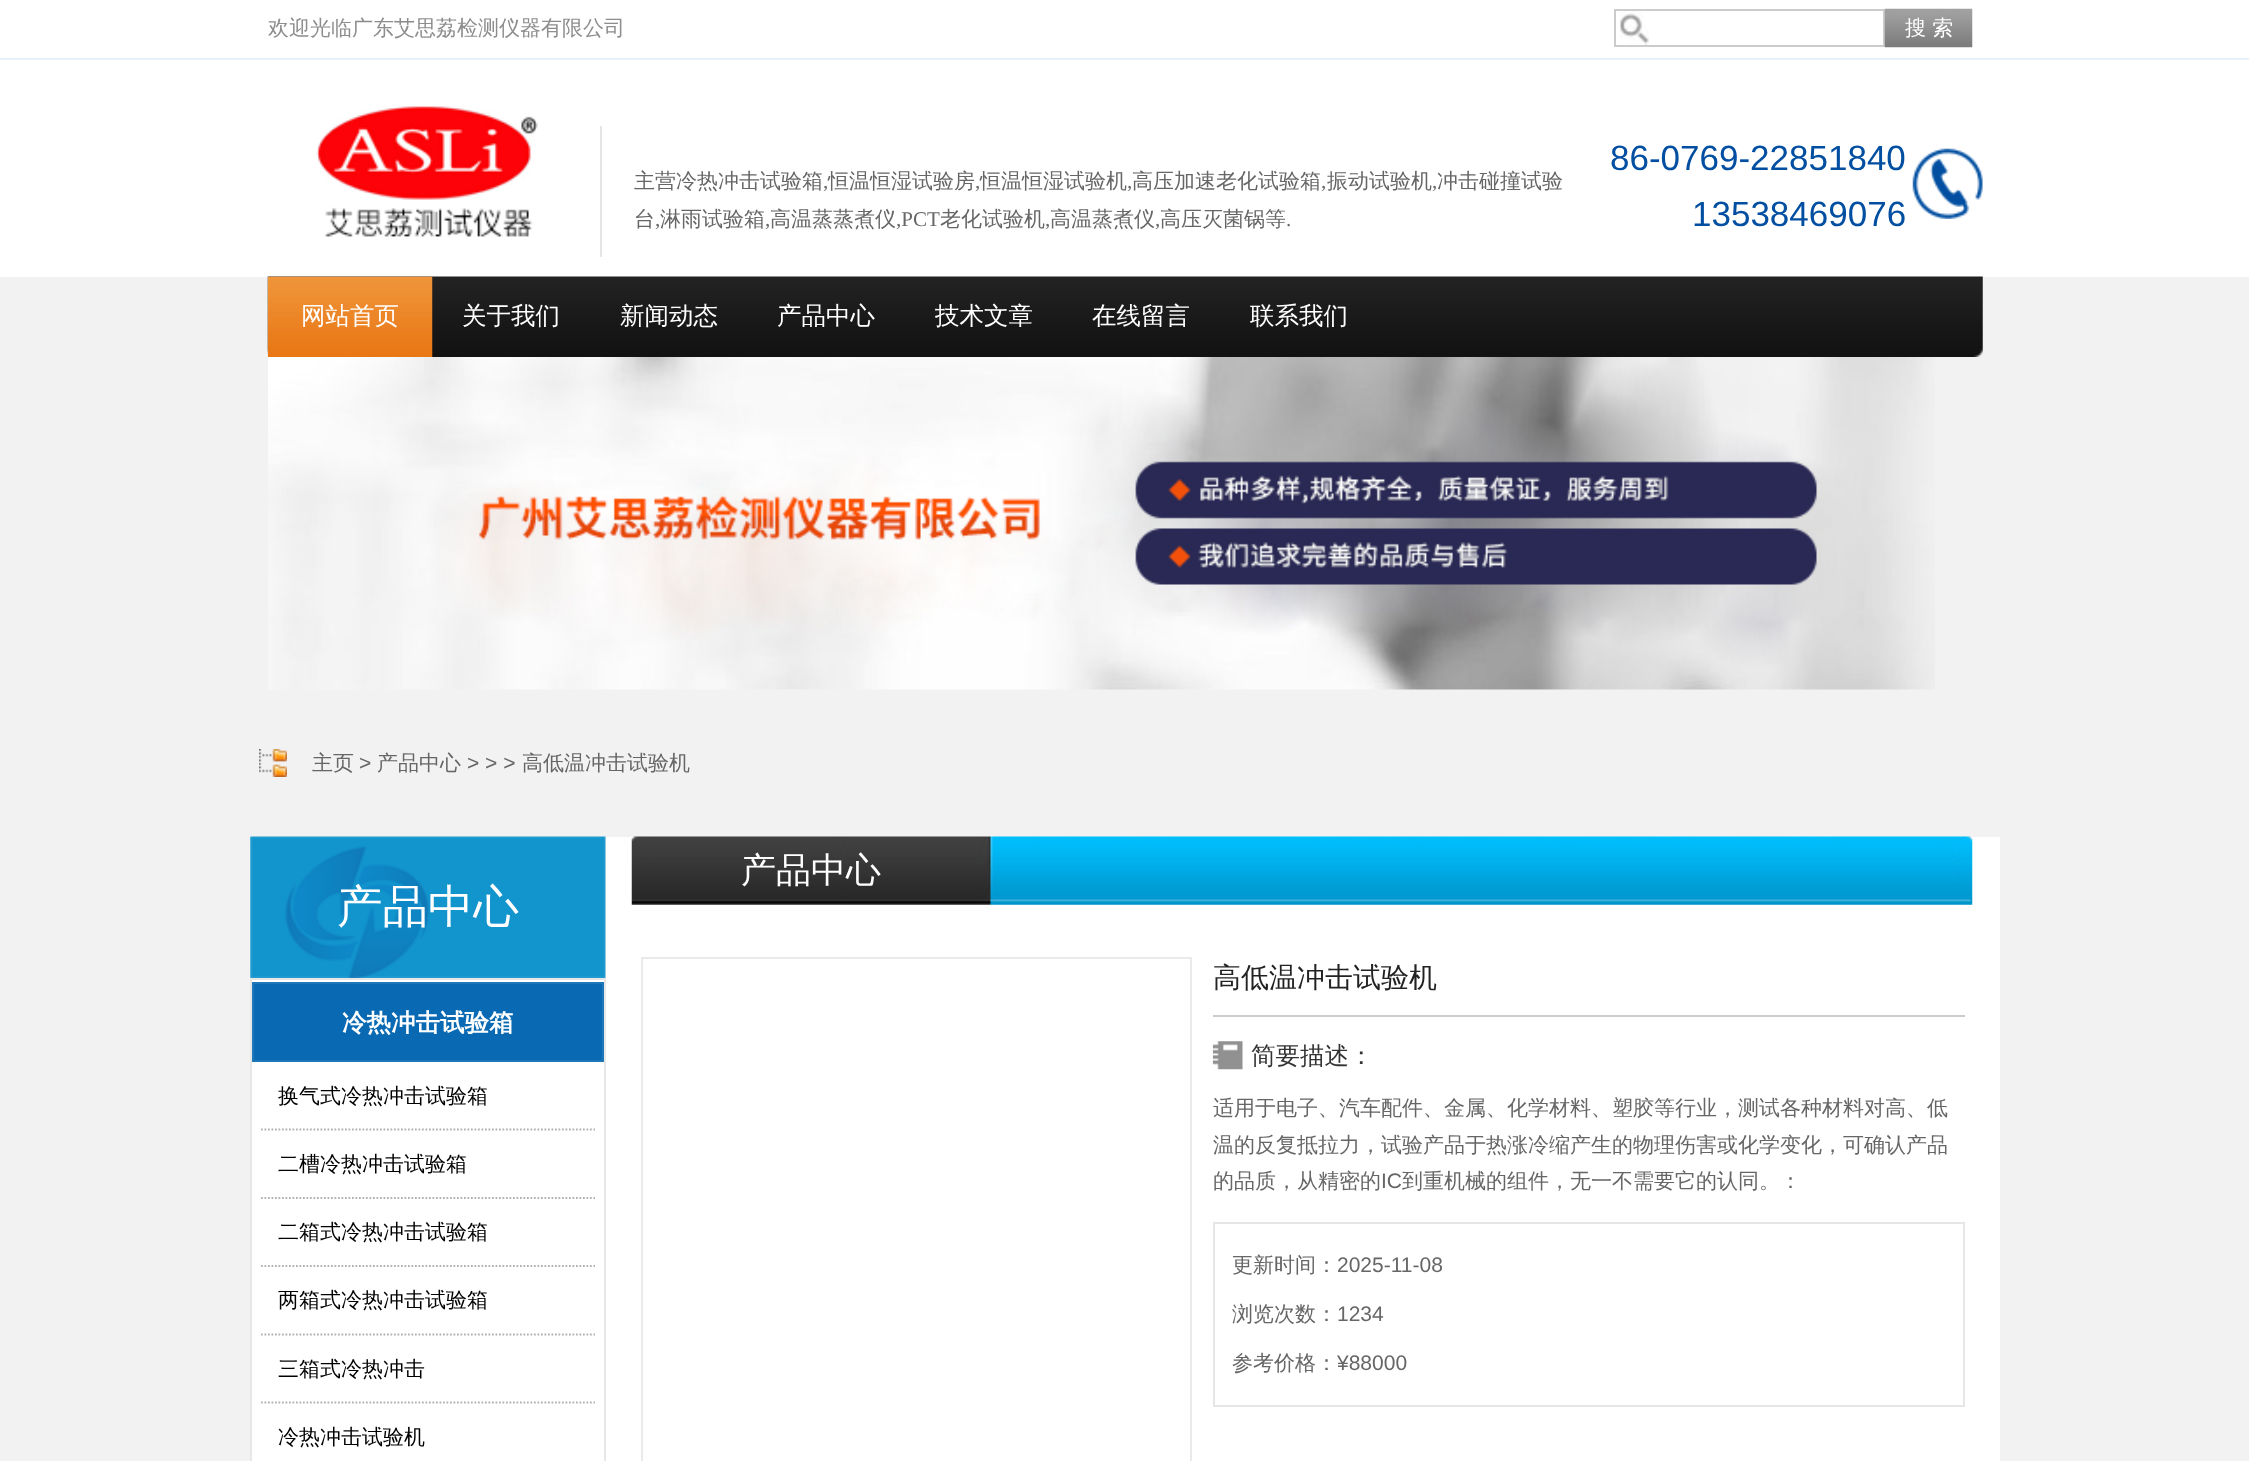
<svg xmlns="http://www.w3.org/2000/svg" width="2249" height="1461">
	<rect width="100%" height="100%" fill="#F2F2F2" />
	<rect x="0" y="0" width="2249" height="277" fill="#FFFFFF" />
	<rect x="0" y="58" width="2249" height="2" fill="#E6F0F8" />
	<text x="268" y="35" font-family="WenQuanYi Zen Hei" font-size="21" font-weight="500" fill="#8D8D8D">欢迎光临广东艾思荔检测仪器有限公司</text>
	<image x="1620" y="11" width="29" height="34" href="assets/img1.png" />
	<rect x="1615" y="10" width="269" height="36" fill="none" stroke="#CCCCCC" stroke-width="2" />
	<image x="1884" y="8" width="89" height="40" href="assets/img2.png" />
	<text x="1905" y="35" font-family="WenQuanYi Zen Hei" font-size="21" font-weight="500" fill="#FFFFFF">搜 索</text>
	<image x="316" y="106" width="222" height="131" href="assets/img3.png" />
	<rect x="600" y="126" width="2" height="131" fill="#E5E5E5" />
	<text x="634" y="188" font-family="WenQuanYi Zen Hei" font-size="21" font-weight="500" fill="#666666">主营冷热冲击试验箱</text>
	<text x="823" y="188" font-family="Liberation Serif" font-size="21" fill="#666666">,</text>
	<text x="828" y="188" font-family="WenQuanYi Zen Hei" font-size="21" font-weight="500" fill="#666666">恒温恒湿试验房</text>
	<text x="975" y="188" font-family="Liberation Serif" font-size="21" fill="#666666">,</text>
	<text x="980" y="188" font-family="WenQuanYi Zen Hei" font-size="21" font-weight="500" fill="#666666">恒温恒湿试验机</text>
	<text x="1127" y="188" font-family="Liberation Serif" font-size="21" fill="#666666">,</text>
	<text x="1132" y="188" font-family="WenQuanYi Zen Hei" font-size="21" font-weight="500" fill="#666666">高压加速老化试验箱</text>
	<text x="1321" y="188" font-family="Liberation Serif" font-size="21" fill="#666666">,</text>
	<text x="1327" y="188" font-family="WenQuanYi Zen Hei" font-size="21" font-weight="500" fill="#666666">振动试验机</text>
	<text x="1432" y="188" font-family="Liberation Serif" font-size="21" fill="#666666">,</text>
	<g font-family="WenQuanYi Zen Hei" font-size="21" font-weight="500" fill="#666666">
		<text x="1437" y="188">冲击碰撞试验</text>
		<text x="634" y="226">台</text>
	</g>
	<text x="655" y="226" font-family="Liberation Serif" font-size="21" fill="#666666">,</text>
	<text x="660" y="226" font-family="WenQuanYi Zen Hei" font-size="21" font-weight="500" fill="#666666">淋雨试验箱</text>
	<text x="765" y="226" font-family="Liberation Serif" font-size="21" fill="#666666">,</text>
	<text x="770" y="226" font-family="WenQuanYi Zen Hei" font-size="21" font-weight="500" fill="#666666">高温蒸蒸煮仪</text>
	<text x="896" y="226" font-family="Liberation Serif" font-size="21" fill="#666666">,PCT</text>
	<text x="940" y="226" font-family="WenQuanYi Zen Hei" font-size="21" font-weight="500" fill="#666666">老化试验机</text>
	<text x="1045" y="226" font-family="Liberation Serif" font-size="21" fill="#666666">,</text>
	<text x="1050" y="226" font-family="WenQuanYi Zen Hei" font-size="21" font-weight="500" fill="#666666">高温蒸煮仪</text>
	<text x="1155" y="226" font-family="Liberation Serif" font-size="21" fill="#666666">,</text>
	<text x="1160" y="226" font-family="WenQuanYi Zen Hei" font-size="21" font-weight="500" fill="#666666">高压灭菌锅等</text>
	<text x="1286" y="226" font-family="Liberation Serif" font-size="21" fill="#666666">.</text>
	<image x="1912" y="148" width="71" height="71" href="assets/img4.png" />
	<g font-family="Liberation Sans" font-size="35" fill="#024FA1">
		<text x="1610" y="170">86-0769-22851840</text>
		<text x="1692" y="226">13538469076</text>
	</g>
	<image x="267" y="276" width="1716" height="81" href="assets/img5.png" />
	<image x="267" y="276" width="166" height="81" href="assets/img6.png" />
	<g font-family="WenQuanYi Zen Hei" font-size="24.5" font-weight="500" fill="#FFFFFF">
		<text x="301" y="324">网站首页</text>
		<text x="462" y="324">关于我们</text>
		<text x="620" y="324">新闻动态</text>
		<text x="777" y="324">产品中心</text>
		<text x="935" y="324">技术文章</text>
		<text x="1092" y="324">在线留言</text>
		<text x="1250" y="324">联系我们</text>
	</g>
	<image x="268" y="357" width="1667" height="333" href="assets/img7.png" />
	<image x="259" y="749" width="28" height="28" href="assets/img8.png" />
	<text x="312" y="770" font-family="WenQuanYi Zen Hei" font-size="21" font-weight="500" fill="#666666">主页</text>
	<text x="359" y="770" font-family="Liberation Sans" font-size="21" fill="#666666">&gt;</text>
	<text x="377" y="770" font-family="WenQuanYi Zen Hei" font-size="21" font-weight="500" fill="#666666">产品中心</text>
	<text x="467" y="770" font-family="Liberation Sans" font-size="21" fill="#666666">&gt; &gt; &gt;</text>
	<text x="522" y="770" font-family="WenQuanYi Zen Hei" font-size="21" font-weight="500" fill="#666666">高低温冲击试验机</text>
	<image x="250" y="836" width="356" height="142" href="assets/img9.png" />
	<text x="337" y="922" font-family="WenQuanYi Zen Hei" font-size="45.5" font-weight="500" fill="#FFFFFF">产品中心</text>
	<rect x="251" y="979" width="354" height="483" fill="#FFFFFF" stroke="#E7E7E7" stroke-width="2" />
	<rect x="253" y="983" width="350" height="78" fill="#0969B3" stroke="#1E77B9" stroke-width="2" />
	<text x="342" y="1031" font-family="WenQuanYi Zen Hei" font-size="24.5" font-weight="700" fill="#FFFFFF">冷热冲击试验箱</text>
	<path d="M261 1129.5H595" fill="none" stroke="#B1B1B1" stroke-width="1.8" stroke-dasharray="1.75 1.75" />
	<text x="278" y="1103" font-family="WenQuanYi Zen Hei" font-size="21" font-weight="500" fill="#000000">换气式冷热冲击试验箱</text>
	<path d="M261 1198H595" fill="none" stroke="#B1B1B1" stroke-width="1.8" stroke-dasharray="1.75 1.75" />
	<text x="278" y="1171" font-family="WenQuanYi Zen Hei" font-size="21" font-weight="500" fill="#000000">二槽冷热冲击试验箱</text>
	<path d="M261 1266H595" fill="none" stroke="#B1B1B1" stroke-width="1.8" stroke-dasharray="1.75 1.75" />
	<text x="278" y="1239" font-family="WenQuanYi Zen Hei" font-size="21" font-weight="500" fill="#000000">二箱式冷热冲击试验箱</text>
	<path d="M261 1334.5H595" fill="none" stroke="#B1B1B1" stroke-width="1.8" stroke-dasharray="1.75 1.75" />
	<text x="278" y="1307" font-family="WenQuanYi Zen Hei" font-size="21" font-weight="500" fill="#000000">两箱式冷热冲击试验箱</text>
	<path d="M261 1402.5H595" fill="none" stroke="#B1B1B1" stroke-width="1.8" stroke-dasharray="1.75 1.75" />
	<g font-family="WenQuanYi Zen Hei" font-size="21" font-weight="500" fill="#000000">
		<text x="278" y="1376">三箱式冷热冲击</text>
		<text x="278" y="1444">冷热冲击试验机</text>
	</g>
	<rect x="606" y="837" width="1394" height="624" fill="#FFFFFF" />
	<image x="631" y="836" width="1342" height="69" href="assets/img10.png" />
	<text x="741" y="882" font-family="WenQuanYi Zen Hei" font-size="35" font-weight="500" fill="#FFFFFF">产品中心</text>
	<rect x="642" y="958" width="549" height="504" fill="none" stroke="#EAEAEA" stroke-width="2" />
	<rect x="1213" y="1015" width="752" height="2" fill="#CCCCCC" />
	<text x="1213" y="987" font-family="WenQuanYi Zen Hei" font-size="28" font-weight="500" fill="#222222">高低温冲击试验机</text>
	<image x="1212" y="1041" width="31" height="29" href="assets/img11.png" />
	<text x="1251" y="1064" font-family="WenQuanYi Zen Hei" font-size="24.5" font-weight="500" fill="#333333">简要描述：</text>
	<g font-family="WenQuanYi Zen Hei" font-size="21" font-weight="500" fill="#666666">
		<text x="1213" y="1115">适用于电子、汽车配件、金属、化学材料、塑胶等行业，测试各种材料对高、低</text>
		<text x="1213" y="1152">温的反复抵拉力，试验产品于热涨冷缩产生的物理伤害或化学变化，可确认产品</text>
		<text x="1213" y="1188">的品质，从精密的</text>
	</g>
	<text x="1381" y="1188" font-family="Liberation Sans" font-size="21" fill="#666666">IC</text>
	<text x="1402" y="1188" font-family="WenQuanYi Zen Hei" font-size="21" font-weight="500" fill="#666666">到重机械的组件，无一不需要它的认同。：</text>
	<rect x="1214" y="1223" width="750" height="183" fill="none" stroke="#E6E6E6" stroke-width="2" />
	<text x="1232" y="1272" font-family="WenQuanYi Zen Hei" font-size="21" font-weight="500" fill="#666666">更新时间：</text>
	<text x="1337" y="1272" font-family="Liberation Sans" font-size="21" fill="#666666">2025-11-08</text>
	<text x="1232" y="1321" font-family="WenQuanYi Zen Hei" font-size="21" font-weight="500" fill="#666666">浏览次数：</text>
	<text x="1337" y="1321" font-family="Liberation Sans" font-size="21" fill="#666666">1234</text>
	<text x="1232" y="1370" font-family="WenQuanYi Zen Hei" font-size="21" font-weight="500" fill="#666666">参考价格：</text>
	<text x="1337" y="1370" font-family="Liberation Sans" font-size="21" fill="#666666">¥88000</text>
</svg>
